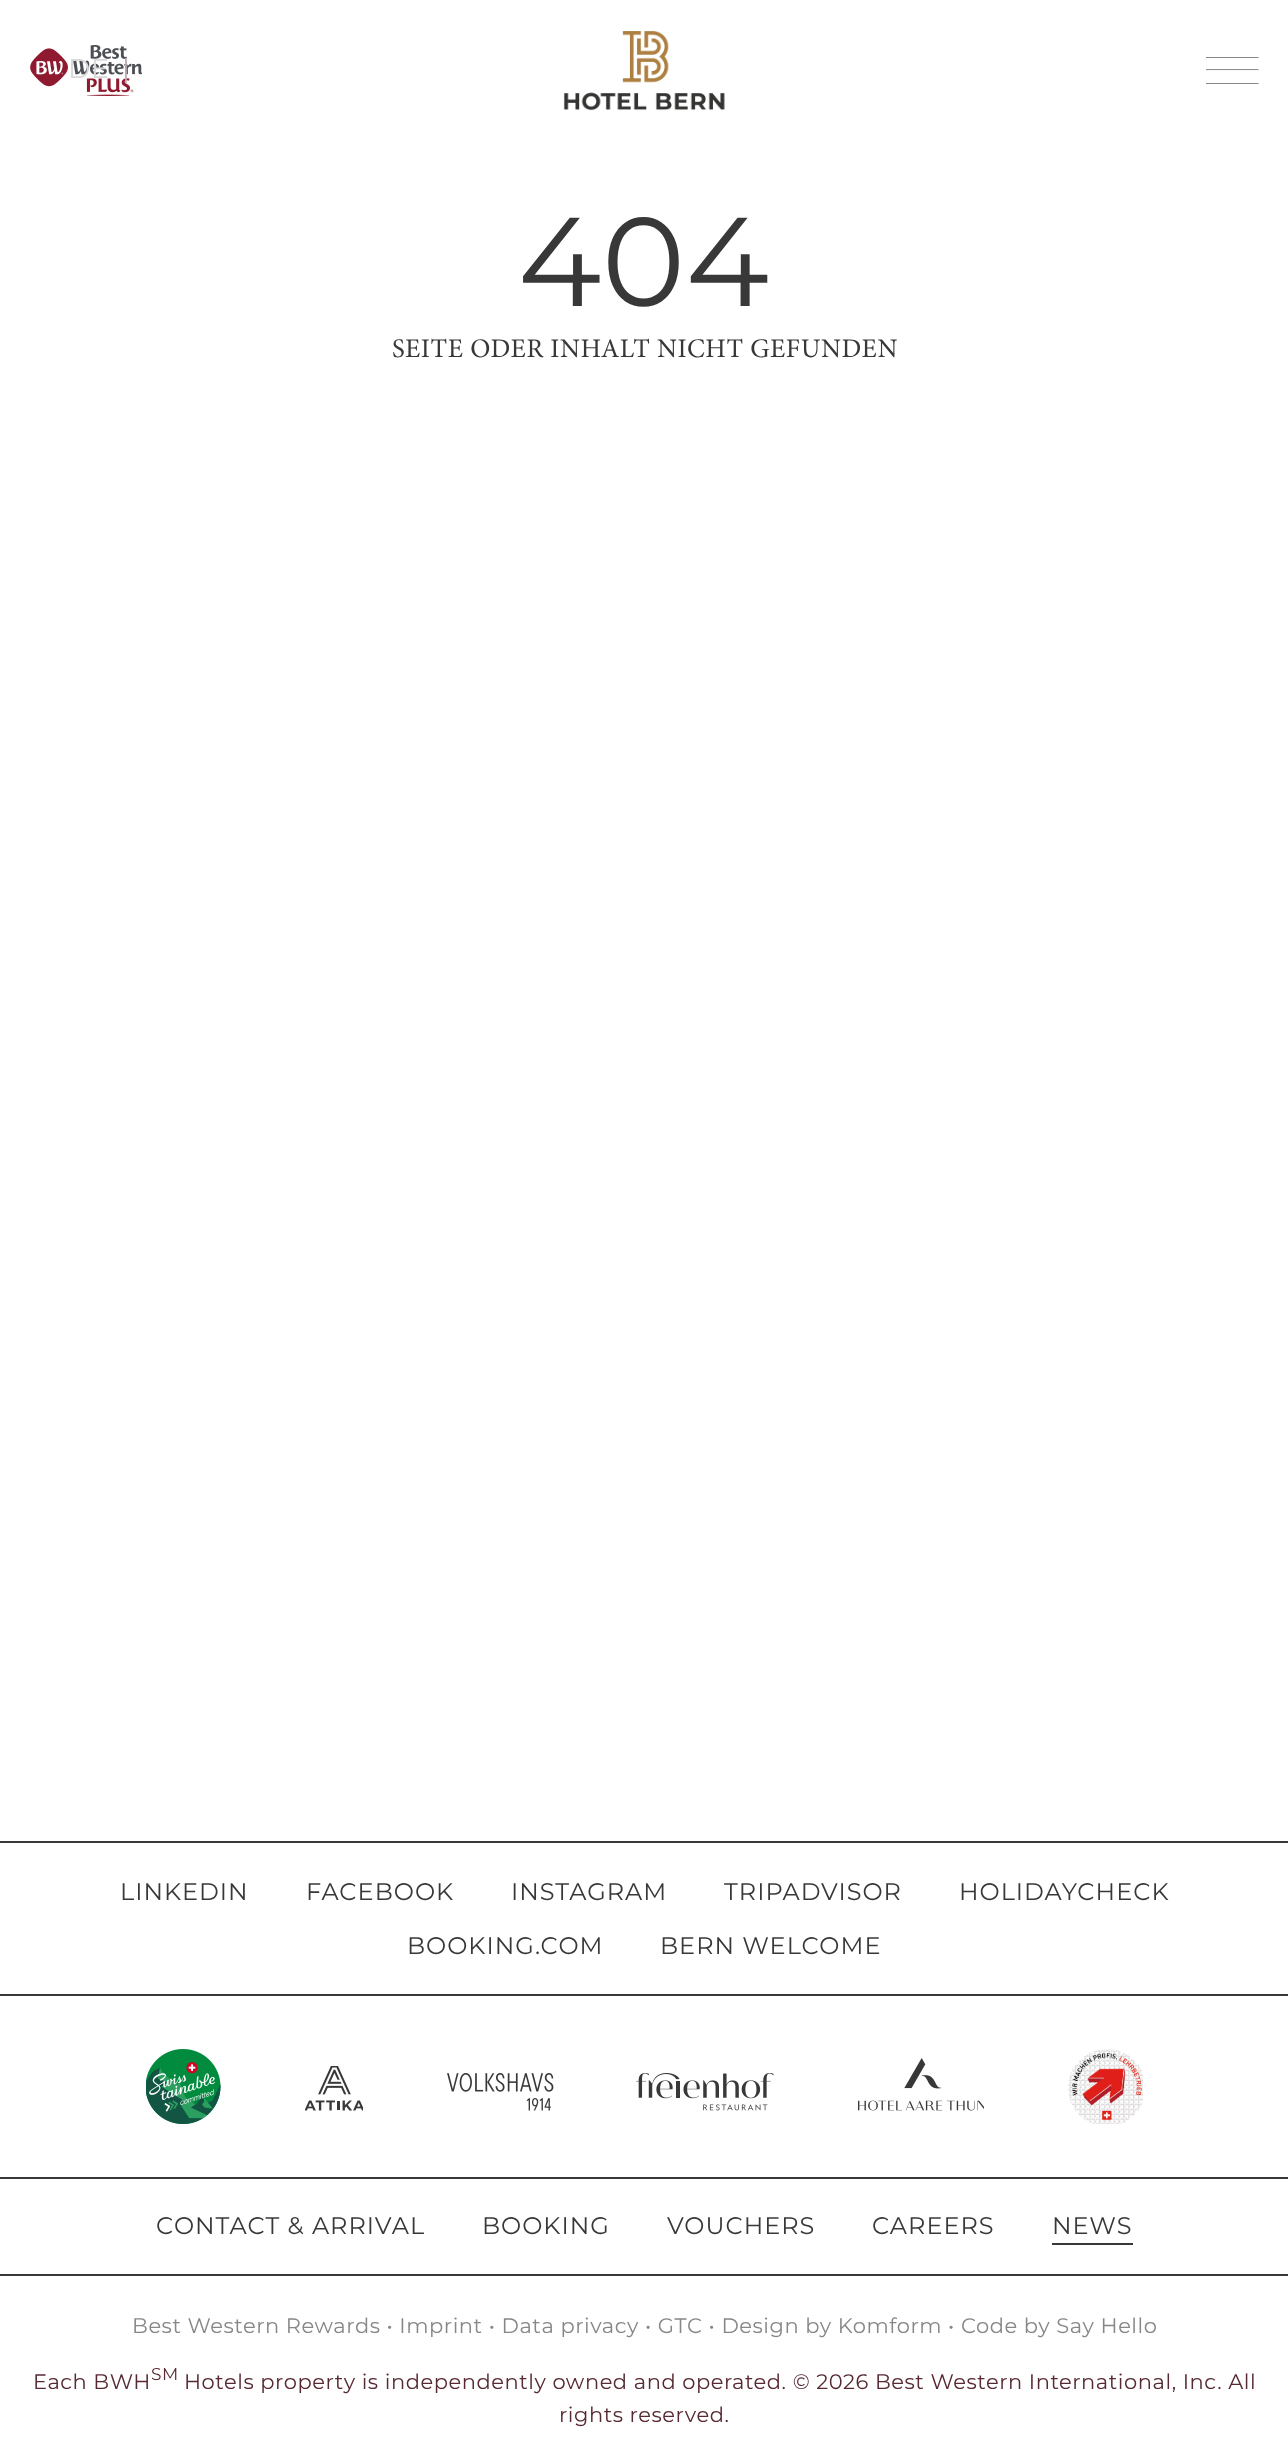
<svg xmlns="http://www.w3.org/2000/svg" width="1288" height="2464">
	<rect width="100%" height="100%" fill="#FFFFFF" />
	<image x="30" y="45" width="112" height="51" href="assets/img1.png" />
	<image x="563" y="31" width="162" height="80" href="assets/img2.png" />
	<image x="1206" y="57" width="53" height="27" href="assets/img3.png" />
	<text x="68" y="78" font-family="Montserrat" font-size="27" letter-spacing="0.55" fill="#D9D9DA">DE</text>
	<text x="122" y="78" font-family="Montserrat" font-size="27" letter-spacing="0.55" fill="#BBADB2">|</text>
	<rect x="0" y="1841" width="1288" height="2" fill="#383838" />
	<g font-family="Montserrat" font-size="24" letter-spacing="1" fill="#383838">
		<text x="120" y="1900">LINKEDIN</text>
		<text x="306" y="1900">FACEBOOK</text>
		<text x="511" y="1900">INSTAGRAM</text>
		<text x="724" y="1900">TRIPADVISOR</text>
		<text x="959" y="1900">HOLIDAYCHECK</text>
		<text x="407" y="1954">BOOKING.COM</text>
		<text x="660" y="1954">BERN WELCOME</text>
	</g>
	<rect x="0" y="1994" width="1288" height="2" fill="#383838" />
	<image x="146" y="2049" width="75" height="75" href="assets/img4.png" />
	<image x="305" y="2066" width="58" height="45" href="assets/img5.png" />
	<image x="447" y="2073" width="107" height="38" href="assets/img6.png" />
	<image x="636" y="2073" width="138" height="38" href="assets/img7.png" />
	<image x="858" y="2058" width="126" height="53" href="assets/img8.png" />
	<image x="1068" y="2049" width="75" height="75" href="assets/img9.png" />
	<rect x="0" y="2177" width="1288" height="2" fill="#383838" />
	<g font-family="Montserrat" font-size="24" letter-spacing="1" fill="#383838">
		<text x="156" y="2234">CONTACT &amp; ARRIVAL</text>
		<text x="482" y="2234">BOOKING</text>
		<text x="667" y="2234">VOUCHERS</text>
		<text x="872" y="2234">CAREERS</text>
		<text x="1052" y="2234">NEWS</text>
	</g>
	<rect x="1052" y="2243" width="81" height="2" fill="#383838" />
	<rect x="0" y="2274" width="1288" height="2" fill="#383838" />
	<text x="132" y="2333" font-family="Montserrat" font-size="21" letter-spacing="0.55" fill="#878787">Best Western Rewards • Imprint • Data privacy • GTC • Design by Komform • Code by Say Hello</text>
	<text x="33" y="2389" font-family="Montserrat" font-size="21" letter-spacing="0.55" fill="#572932">Each BWH</text>
	<text x="151" y="2380" font-family="Montserrat" font-size="17" letter-spacing="0.55" fill="#572932">SM</text>
	<g font-family="Montserrat" font-size="21" letter-spacing="0.55" fill="#572932">
		<text x="184" y="2389">Hotels property is independently owned and operated. © 2026 Best Western International, Inc. All</text>
		<text x="559" y="2422">rights reserved.</text>
	</g>
	<text x="518" y="306" font-family="Montserrat" font-size="126" letter-spacing="0.55" fill="#383838">404</text>
	<text x="392" y="357" font-family="Minion" font-size="26.9" letter-spacing="0.55" fill="#383838">SEITE ODER INHALT NICHT GEFUNDEN</text>
</svg>
